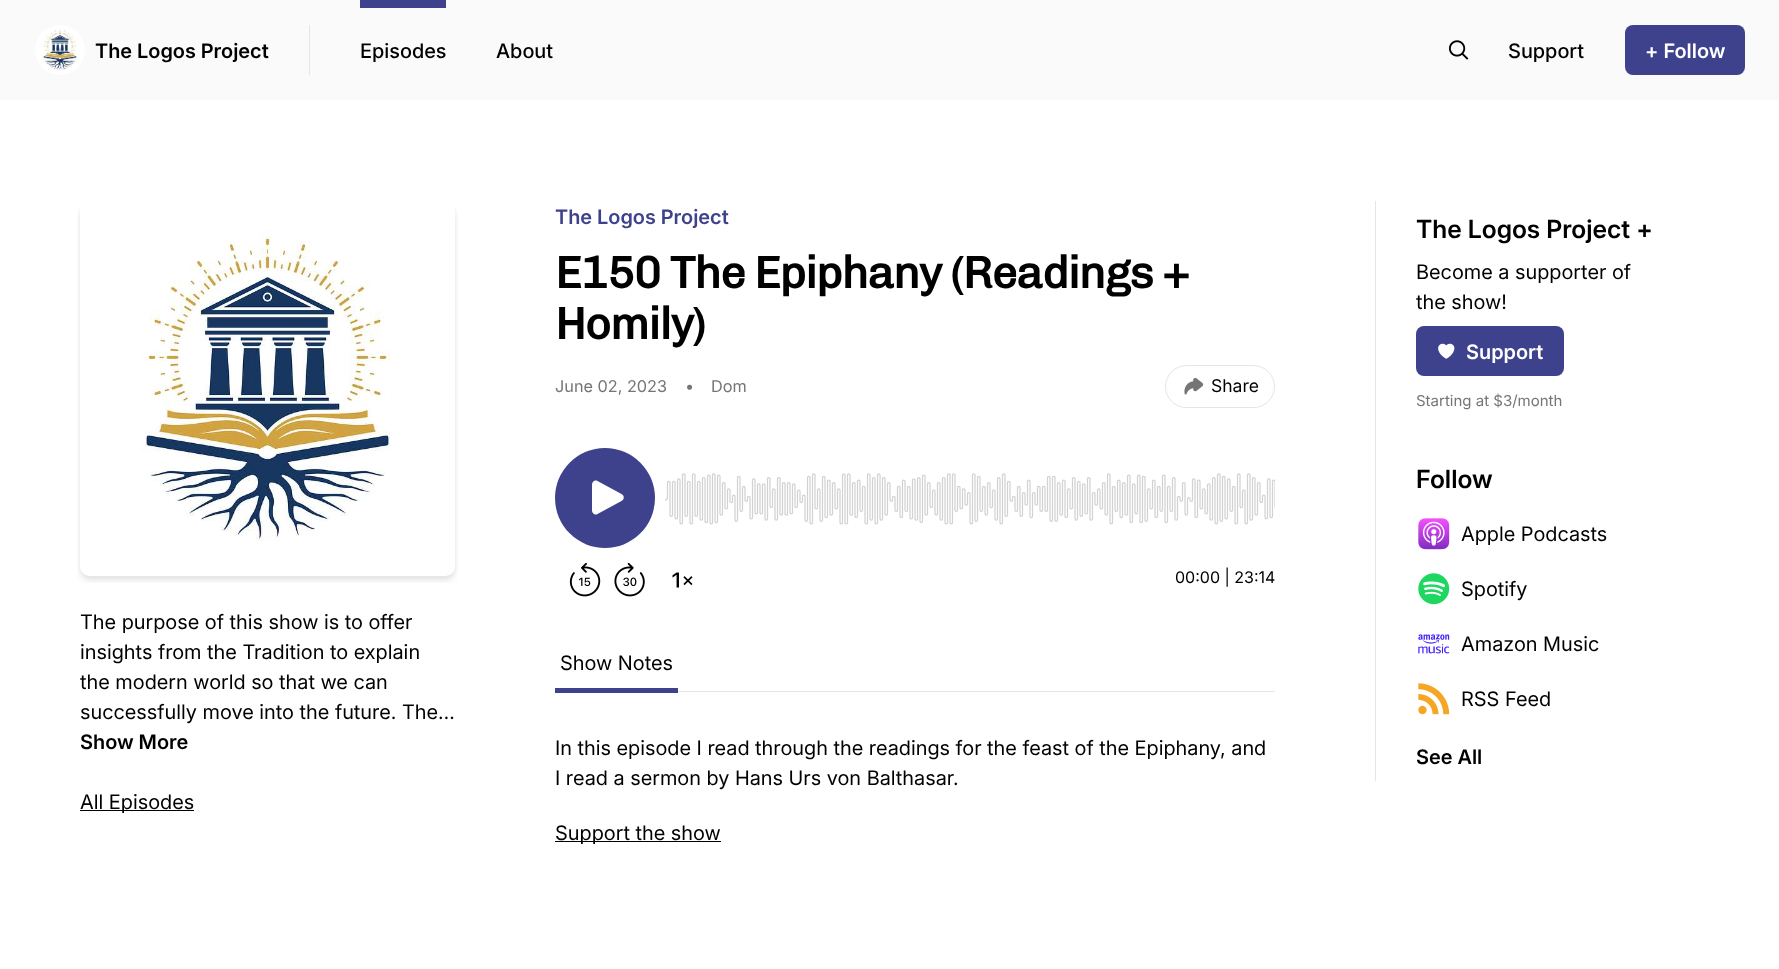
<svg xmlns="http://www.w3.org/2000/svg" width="1779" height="969">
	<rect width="100%" height="100%" fill="#FFFFFF" />
	<rect x="0" y="0" width="1779" height="100" fill="#FAFAFA" />
	<rect x="309" y="25" width="1" height="50" fill="#E4E5E6" />
	<image x="35" y="25" width="50" height="50" href="assets/img1.png" />
	<text x="95" y="58" font-family="Inter" font-size="20" font-weight="600" fill="#000000">The Logos Project</text>
	<rect x="360" y="0" width="86" height="8" fill="#3E428C" />
	<g font-family="Inter" font-size="20" font-weight="500" fill="#000000">
		<text x="360" y="58">Episodes</text>
		<text x="496" y="58">About</text>
	</g>
	<image x="1449" y="40" width="20" height="20" href="assets/img2.png" />
	<text x="1508" y="58" font-family="Inter" font-size="20" font-weight="500" fill="#000000">Support</text>
	<rect x="1625" y="25" width="120" height="50" rx="8" fill="#3E428C" />
	<text x="1645" y="58" font-family="Inter" font-size="20" font-weight="600" fill="#FFFFFF">+ Follow</text>
	<image x="77" y="207" width="381" height="376" href="assets/img3.png" />
	<g font-family="Inter" font-size="20" fill="#000000">
		<text x="80" y="629">The purpose of this show is to offer</text>
		<text x="80" y="659">insights from the Tradition to explain</text>
		<text x="80" y="689">the modern world so that we can</text>
		<text x="80" y="719">successfully move into the future. The…</text>
	</g>
	<text x="80" y="749" font-family="Inter" font-size="20" font-weight="600" fill="#000000">Show More</text>
	<rect x="80" y="810" width="114" height="1" fill="#000000" />
	<text x="80" y="809" font-family="Inter" font-size="20" fill="#000000">All Episodes</text>
	<text x="555" y="224" font-family="Inter" font-size="20" font-weight="600" fill="#3E428C">The Logos Project</text>
	<g font-family="Chivo" font-size="45" font-weight="700" letter-spacing="-1.1" fill="#000000">
		<text x="555" y="288">E150 The Epiphany (Readings +</text>
		<text x="555" y="339">Homily)</text>
	</g>
	<g font-family="'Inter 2'" font-size="16.25" fill="#747576">
		<text x="555" y="392">June 02, 2023</text>
		<text x="685" y="392">•</text>
		<text x="711" y="392">Dom</text>
	</g>
	<rect x="1165.5" y="365.5" width="109" height="42" rx="21" fill="none" stroke="#E4E5E6" />
	<image x="1184" y="377" width="20" height="18" href="assets/img4.png" />
	<text x="1211" y="392" font-family="'Inter 2'" font-size="17.5" fill="#000000">Share</text>
	<image x="569" y="563" width="32" height="34" href="assets/img5.png" />
	<image x="614" y="563" width="31" height="34" href="assets/img6.png" />
	<image x="672" y="572" width="21" height="16" href="assets/img7.png" />
	<circle cx="605" cy="498" r="50" fill="#3E428C" />
	<path d="M592 484.5C592 481.5 595 479.5 597.5 481L621.5 494C624.5 495.5 624.5 499.5 621.5 501L597.5 514C595 515.5 592 513.5 592 510.5Z" fill="#FFFFFF" fill-rule="evenodd" />
	<image x="665" y="473" width="610" height="52" href="assets/img8.png" />
	<text x="1175" y="583" font-family="'Inter 2'" font-size="16" fill="#000000">00:00 | 23:14</text>
	<rect x="678" y="691" width="597" height="1" fill="#E4E5E6" />
	<rect x="555" y="688" width="123" height="5" fill="#3E428C" />
	<g font-family="Inter" font-size="20" fill="#000000">
		<text x="560" y="670">Show Notes</text>
		<text x="555" y="755">In this episode I read through the readings for the feast of the Epiphany, and</text>
		<text x="555" y="785">I read a sermon by Hans Urs von Balthasar.</text>
	</g>
	<rect x="555" y="841" width="166" height="1" fill="#000000" />
	<text x="555" y="840" font-family="Inter" font-size="20" fill="#000000">Support the show</text>
	<rect x="1375" y="201" width="1" height="580" fill="#E4E5E6" />
	<text x="1416" y="238" font-family="'Inter 2'" font-size="25" font-weight="600" fill="#000000">The Logos Project +</text>
	<g font-family="Inter" font-size="20" fill="#000000">
		<text x="1416" y="279">Become a supporter of</text>
		<text x="1416" y="309">the show!</text>
	</g>
	<rect x="1416" y="326" width="148" height="50" rx="8" fill="#3E428C" />
	<image x="1438" y="343" width="17" height="16" href="assets/img9.png" />
	<text x="1466" y="359" font-family="Inter" font-size="20" font-weight="600" fill="#FFFFFF">Support</text>
	<text x="1416" y="406" font-family="'Inter 2'" font-size="15" fill="#747576">Starting at $3/month</text>
	<text x="1416" y="488" font-family="'Inter 2'" font-size="25" font-weight="600" fill="#000000">Follow</text>
	<image x="1418" y="518" width="32" height="32" href="assets/img10.png" />
	<text x="1461" y="541" font-family="Inter" font-size="20" fill="#000000">Apple Podcasts</text>
	<image x="1418" y="573" width="32" height="32" href="assets/img11.png" />
	<text x="1461" y="596" font-family="Inter" font-size="20" fill="#000000">Spotify</text>
	<image x="1418" y="634" width="32" height="20" href="assets/img12.png" />
	<text x="1461" y="651" font-family="Inter" font-size="20" fill="#000000">Amazon Music</text>
	<image x="1418" y="683" width="32" height="32" href="assets/img13.png" />
	<text x="1461" y="706" font-family="Inter" font-size="20" fill="#000000">RSS Feed</text>
	<text x="1416" y="764" font-family="Inter" font-size="20" font-weight="600" fill="#000000">See All</text>
</svg>
